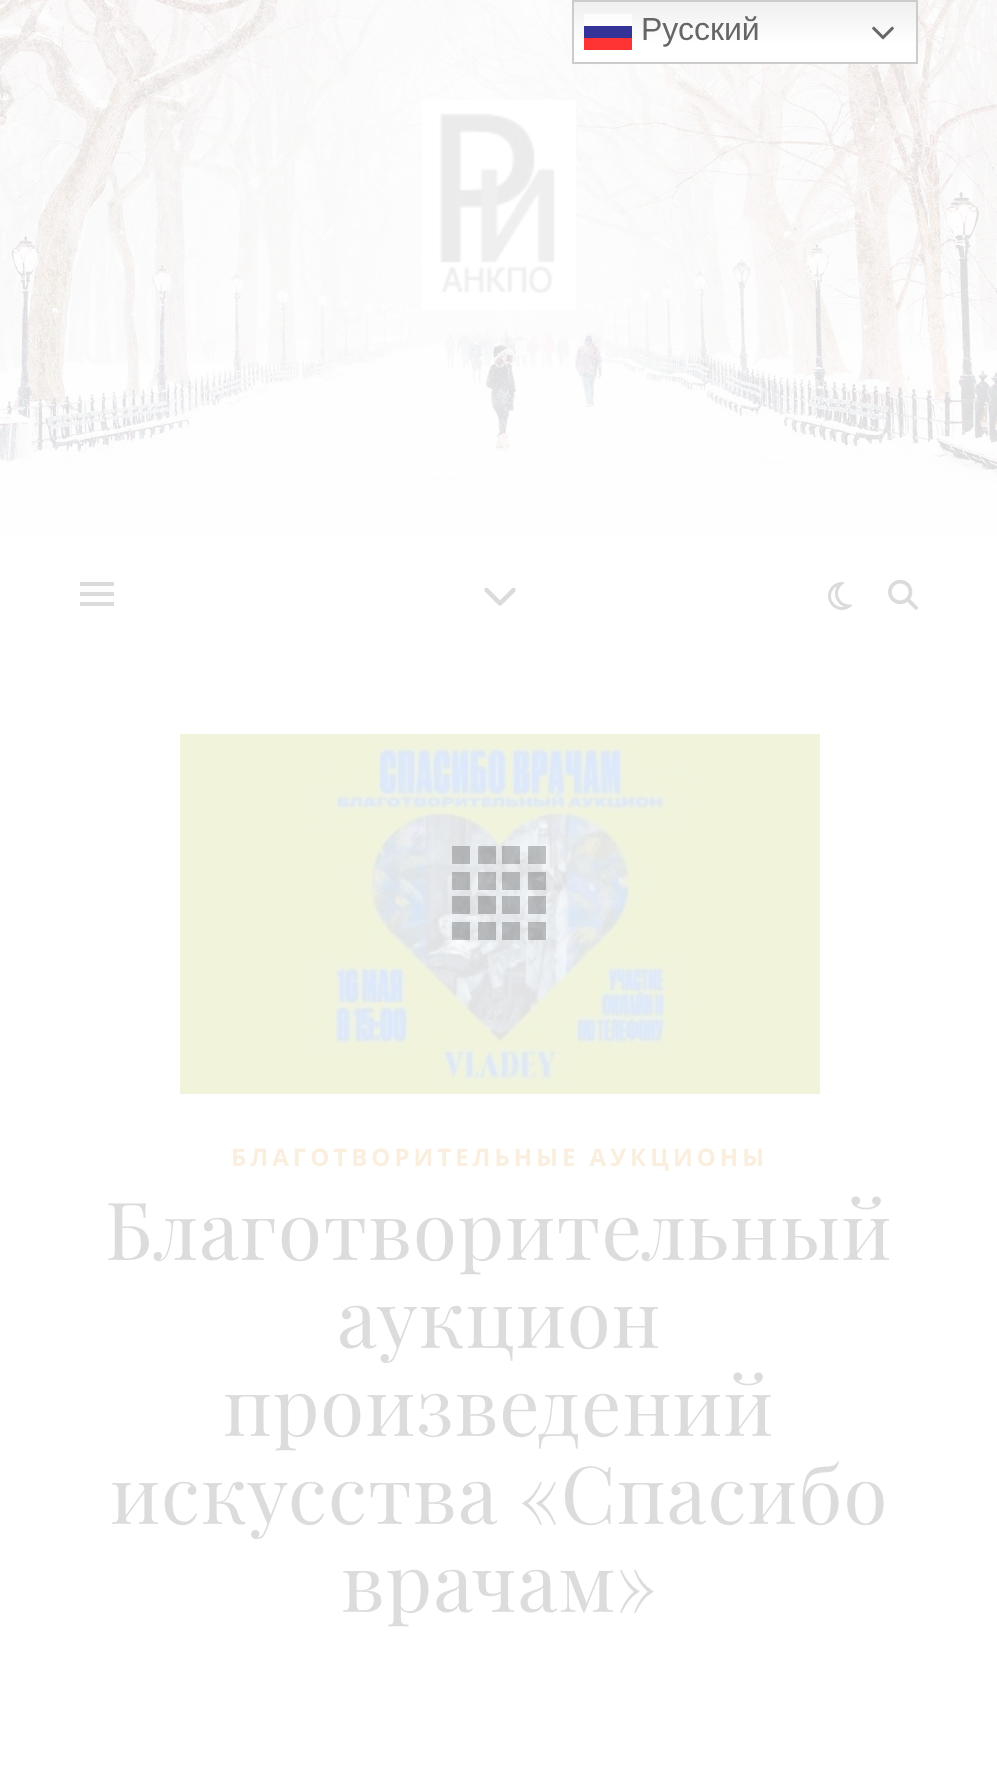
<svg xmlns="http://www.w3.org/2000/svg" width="997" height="1787">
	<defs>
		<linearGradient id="g1" gradientUnits="userSpaceOnUse" x1="745" y1="0" x2="745" y2="64"><stop offset="0" stop-color="#EFEFEF" /><stop offset="0.7" stop-color="#FFFFFF" /></linearGradient>
	</defs>
	<rect width="100%" height="100%" fill="#FFFFFF" />
	<image x="0" y="0" width="997" height="534" href="assets/img2.png" />
	<rect x="574" y="2" width="342" height="60" fill="url(#g1)" />
	<rect x="573" y="1" width="344" height="62" fill="none" stroke="#CCCCCC" stroke-width="2" />
	<rect x="584" y="14" width="48" height="12" fill="#FFFFFF" fill-opacity="0.8" />
	<text x="641" y="40" font-family="Liberation Sans" font-size="32" fill="#666666">Русский</text>
	<rect x="584" y="26" width="48" height="12" fill="#343498" />
	<image x="872" y="26" width="22" height="14" href="assets/img1.png" />
	<rect x="584" y="38" width="48" height="12" fill="#FE3434" />
	<image x="180" y="734" width="640" height="360" href="assets/img7.png" />
	<rect x="452" y="846" width="18" height="18" fill="#333333" fill-opacity="0.28" />
	<rect x="478" y="846" width="18" height="18" fill="#333333" fill-opacity="0.28" />
	<rect x="502" y="846" width="18" height="18" fill="#333333" fill-opacity="0.28" />
	<rect x="528" y="846" width="18" height="18" fill="#333333" fill-opacity="0.28" />
	<rect x="452" y="872" width="18" height="18" fill="#333333" fill-opacity="0.28" />
	<rect x="478" y="872" width="18" height="18" fill="#333333" fill-opacity="0.28" />
	<rect x="502" y="872" width="18" height="18" fill="#333333" fill-opacity="0.28" />
	<rect x="528" y="872" width="18" height="18" fill="#333333" fill-opacity="0.28" />
	<rect x="452" y="896" width="18" height="18" fill="#333333" fill-opacity="0.28" />
	<rect x="478" y="896" width="18" height="18" fill="#333333" fill-opacity="0.28" />
	<rect x="502" y="896" width="18" height="18" fill="#333333" fill-opacity="0.28" />
	<rect x="528" y="896" width="18" height="18" fill="#333333" fill-opacity="0.28" />
	<rect x="452" y="922" width="18" height="18" fill="#333333" fill-opacity="0.28" />
	<rect x="478" y="922" width="18" height="18" fill="#333333" fill-opacity="0.28" />
	<rect x="502" y="922" width="18" height="18" fill="#333333" fill-opacity="0.28" />
	<rect x="528" y="922" width="18" height="18" fill="#333333" fill-opacity="0.28" />
	<image x="422" y="100" width="154" height="210" href="assets/img3.png" />
	<rect x="80" y="582" width="34" height="4" fill="#DBDBDB" />
	<rect x="80" y="592" width="34" height="4" fill="#DBDBDB" />
	<rect x="80" y="602" width="34" height="4" fill="#DBDBDB" />
	<image x="484" y="587" width="32" height="19" href="assets/img4.png" />
	<image x="828" y="582" width="24" height="28" href="assets/img5.png" />
	<image x="888" y="579" width="30" height="31" href="assets/img6.png" />
	<text x="231" y="1166" font-family="Open Sans" font-size="24" font-weight="700" letter-spacing="4" fill="#FAEFDE">БЛАГОТВОРИТЕЛЬНЫЕ АУКЦИОНЫ</text>
	<g font-family="Playfair Display" font-size="80" letter-spacing="1" fill="#DCDCDC">
		<text x="105" y="1260">Благотворительный</text>
		<text x="337" y="1348">аукцион</text>
		<text x="223" y="1436">произведений</text>
		<text x="110" y="1524">искусства «Спасибо</text>
		<text x="341" y="1612">врачам»</text>
	</g>
</svg>
